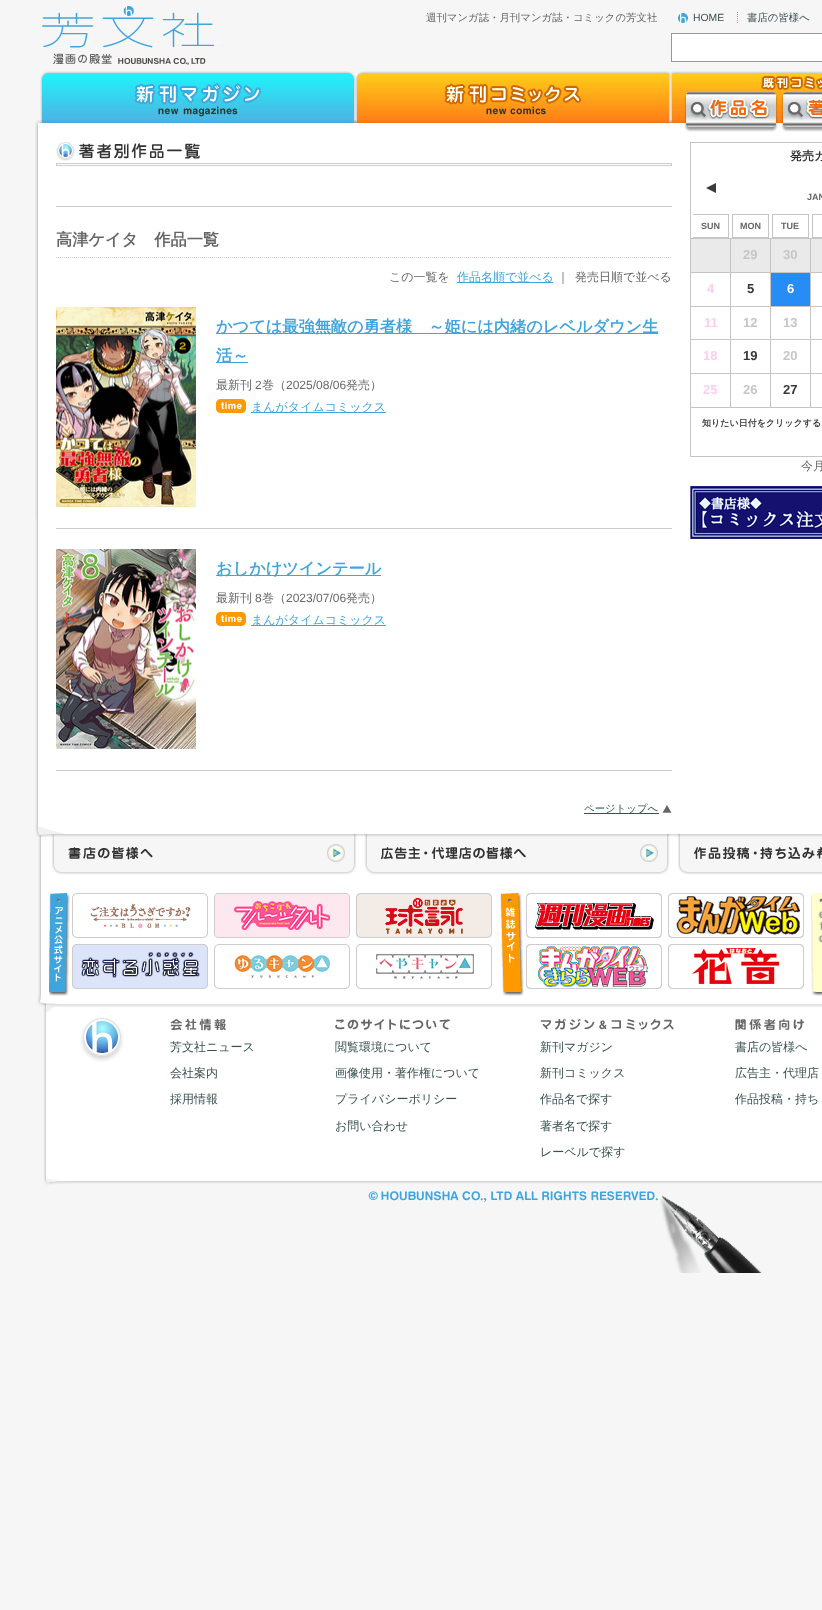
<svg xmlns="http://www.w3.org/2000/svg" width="822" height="1610">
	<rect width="100%" height="100%" fill="#F6F6F6" />
	<image x="42" y="6" width="172" height="59" href="assets/img1.png" />
	<text x="426" y="21" font-family="WenQuanYi Zen Hei" font-size="10.4" font-weight="500" fill="#666666">週刊マンガ誌・月刊マンガ誌・コミックの芳文社</text>
	<image x="678" y="13" width="10" height="10" href="assets/img2.png" />
	<text x="693" y="21" font-family="Liberation Sans" font-size="10.4" fill="#3A5051">HOME</text>
	<image x="737" y="12" width="1" height="11" href="assets/img3.png" />
	<text x="747" y="21" font-family="WenQuanYi Zen Hei" font-size="10.4" font-weight="500" fill="#3A5051">書店の皆様へ</text>
	<rect x="671.5" y="33.5" width="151" height="28" fill="#FFFFFF" stroke="#979797" />
	<image x="35" y="519" width="787" height="319" href="assets/img4.png" />
	<image x="35" y="69" width="787" height="450" href="assets/img5.png" />
	<image x="42" y="71" width="315" height="52" href="assets/img6.png" />
	<image x="357" y="71" width="315" height="52" href="assets/img7.png" />
	<image x="672" y="71" width="150" height="60" href="assets/img8.png" />
	<image x="685" y="94" width="92" height="38" href="assets/img9.png" />
	<image x="782" y="94" width="40" height="38" href="assets/img10.png" />
	<image x="56" y="142" width="616" height="24" href="assets/img11.png" />
	<rect x="56" y="206" width="616" height="1" fill="#CCCCCC" />
	<image x="56" y="257" width="615" height="1" href="assets/img12.png" />
	<text x="56" y="245" font-family="WenQuanYi Zen Hei" font-size="16.2" font-weight="700" fill="#666666">高津ケイタ　作品一覧</text>
	<text x="389" y="281" font-family="WenQuanYi Zen Hei" font-size="12" font-weight="500" fill="#666666">この一覧を</text>
	<rect x="457" y="282" width="96" height="1" fill="#3FA5DD" />
	<text x="457" y="281" font-family="WenQuanYi Zen Hei" font-size="12" font-weight="500" fill="#3FA5DD">作品名順で並べる</text>
	<g font-family="WenQuanYi Zen Hei" font-size="12" font-weight="500" fill="#666666">
		<text x="557" y="281">｜</text>
		<text x="575" y="281">発売日順で並べる</text>
	</g>
	<rect x="56" y="528" width="616" height="1" fill="#CCCCCC" />
	<image x="56" y="307" width="140" height="200" href="assets/img13.png" />
	<rect x="216" y="333" width="442" height="1" fill="#3FA5DD" />
	<text x="216" y="332" font-family="WenQuanYi Zen Hei" font-size="16.2" font-weight="700" fill="#3FA5DD">かつては最強無敵の勇者様　～姫には内緒のレベルダウン生</text>
	<rect x="216" y="362" width="32" height="1" fill="#3FA5DD" />
	<text x="216" y="361" font-family="WenQuanYi Zen Hei" font-size="16.2" font-weight="700" fill="#3FA5DD">活～</text>
	<text x="216" y="389" font-family="WenQuanYi Zen Hei" font-size="12" font-weight="500" fill="#666666">最新刊</text>
	<text x="255" y="389" font-family="Liberation Sans" font-size="12" fill="#666666">2</text>
	<text x="262" y="389" font-family="WenQuanYi Zen Hei" font-size="12" font-weight="500" fill="#666666">巻（</text>
	<text x="286" y="389" font-family="Liberation Sans" font-size="12" fill="#666666">2025/08/06</text>
	<text x="346" y="389" font-family="WenQuanYi Zen Hei" font-size="12" font-weight="500" fill="#666666">発売）</text>
	<image x="216" y="399" width="30" height="14" href="assets/img14.png" />
	<rect x="251" y="412" width="135" height="1" fill="#3FA5DD" />
	<text x="251" y="411" font-family="WenQuanYi Zen Hei" font-size="12" font-weight="500" fill="#3FA5DD">まんがタイムコミックス</text>
	<rect x="56" y="770" width="616" height="1" fill="#CCCCCC" />
	<image x="56" y="549" width="140" height="200" href="assets/img15.png" />
	<rect x="216" y="575" width="165" height="1" fill="#3FA5DD" />
	<text x="216" y="574" font-family="WenQuanYi Zen Hei" font-size="16.2" font-weight="700" fill="#3FA5DD">おしかけツインテール</text>
	<text x="216" y="602" font-family="WenQuanYi Zen Hei" font-size="12" font-weight="500" fill="#666666">最新刊</text>
	<text x="255" y="602" font-family="Liberation Sans" font-size="12" fill="#666666">8</text>
	<text x="262" y="602" font-family="WenQuanYi Zen Hei" font-size="12" font-weight="500" fill="#666666">巻（</text>
	<text x="286" y="602" font-family="Liberation Sans" font-size="12" fill="#666666">2023/07/06</text>
	<text x="346" y="602" font-family="WenQuanYi Zen Hei" font-size="12" font-weight="500" fill="#666666">発売）</text>
	<image x="216" y="612" width="30" height="14" href="assets/img14.png" />
	<rect x="251" y="625" width="135" height="1" fill="#3FA5DD" />
	<text x="251" y="624" font-family="WenQuanYi Zen Hei" font-size="12" font-weight="500" fill="#3FA5DD">まんがタイムコミックス</text>
	<image x="662" y="805" width="10" height="8" href="assets/img16.png" />
	<rect x="584" y="813" width="75" height="1" fill="#3A5051" />
	<text x="584" y="812" font-family="WenQuanYi Zen Hei" font-size="10.4" font-weight="500" fill="#3A5051">ページトップへ</text>
	<text x="790" y="160" font-family="WenQuanYi Zen Hei" font-size="12" font-weight="700" fill="#2E2E2E">発売カ</text>
	<rect x="690" y="142" width="132" height="1" fill="#C5C5C5" />
	<rect x="690" y="142" width="1" height="266" fill="#C5C5C5" />
	<path d="M716 183V193L706 188Z" fill="#3A3A3A" />
	<text x="807" y="200" font-family="Liberation Sans" font-size="9" font-weight="700" fill="#666666">JAN</text>
	<rect x="693" y="214" width="36" height="1" fill="#C5C5C5" />
	<rect x="728" y="214" width="1" height="24" fill="#C5C5C5" />
	<rect x="693" y="237" width="36" height="1" fill="#C5C5C5" />
	<text x="701" y="229" font-family="Liberation Sans" font-size="9" font-weight="700" fill="#666666">SUN</text>
	<rect x="732" y="214" width="37" height="1" fill="#C5C5C5" />
	<rect x="768" y="214" width="1" height="24" fill="#C5C5C5" />
	<rect x="732" y="237" width="37" height="1" fill="#C5C5C5" />
	<rect x="732" y="214" width="1" height="24" fill="#C5C5C5" />
	<text x="740" y="229" font-family="Liberation Sans" font-size="9" font-weight="700" fill="#666666">MON</text>
	<rect x="772" y="214" width="37" height="1" fill="#C5C5C5" />
	<rect x="808" y="214" width="1" height="24" fill="#C5C5C5" />
	<rect x="772" y="237" width="37" height="1" fill="#C5C5C5" />
	<rect x="772" y="214" width="1" height="24" fill="#C5C5C5" />
	<text x="781" y="229" font-family="Liberation Sans" font-size="9" font-weight="700" fill="#666666">TUE</text>
	<rect x="812" y="214" width="10" height="1" fill="#C5C5C5" />
	<rect x="812" y="237" width="10" height="1" fill="#C5C5C5" />
	<rect x="812" y="214" width="1" height="24" fill="#C5C5C5" />
	<rect x="691" y="239" width="39" height="33" fill="#EAEAEA" />
	<rect x="810" y="238" width="12" height="1" fill="#C5C5C5" />
	<rect x="810" y="272" width="12" height="1" fill="#C5C5C5" />
	<rect x="810" y="306" width="12" height="1" fill="#C5C5C5" />
	<rect x="810" y="339" width="12" height="1" fill="#C5C5C5" />
	<rect x="810" y="373" width="12" height="1" fill="#C5C5C5" />
	<rect x="810" y="407" width="12" height="1" fill="#C5C5C5" />
	<rect x="810" y="373" width="1" height="35" fill="#C5C5C5" />
	<rect x="770" y="373" width="41" height="1" fill="#C5C5C5" />
	<rect x="810" y="339" width="1" height="35" fill="#C5C5C5" />
	<rect x="770" y="339" width="41" height="1" fill="#C5C5C5" />
	<rect x="810" y="306" width="1" height="34" fill="#C5C5C5" />
	<rect x="770" y="306" width="41" height="1" fill="#C5C5C5" />
	<rect x="810" y="272" width="1" height="35" fill="#C5C5C5" />
	<rect x="770" y="272" width="41" height="1" fill="#C5C5C5" />
	<rect x="810" y="238" width="1" height="35" fill="#C5C5C5" />
	<rect x="770" y="238" width="41" height="1" fill="#C5C5C5" />
	<rect x="770" y="407" width="41" height="1" fill="#C5C5C5" />
	<rect x="770" y="373" width="1" height="35" fill="#C5C5C5" />
	<rect x="730" y="373" width="41" height="1" fill="#C5C5C5" />
	<rect x="770" y="339" width="1" height="35" fill="#C5C5C5" />
	<rect x="730" y="339" width="41" height="1" fill="#C5C5C5" />
	<rect x="770" y="306" width="1" height="34" fill="#C5C5C5" />
	<rect x="730" y="306" width="41" height="1" fill="#C5C5C5" />
	<rect x="770" y="272" width="1" height="35" fill="#C5C5C5" />
	<rect x="730" y="272" width="41" height="1" fill="#C5C5C5" />
	<rect x="770" y="238" width="1" height="35" fill="#C5C5C5" />
	<rect x="730" y="238" width="41" height="1" fill="#C5C5C5" />
	<rect x="730" y="407" width="41" height="1" fill="#C5C5C5" />
	<rect x="730" y="373" width="1" height="35" fill="#C5C5C5" />
	<rect x="691" y="373" width="40" height="1" fill="#C5C5C5" />
	<rect x="730" y="339" width="1" height="35" fill="#C5C5C5" />
	<rect x="691" y="339" width="40" height="1" fill="#C5C5C5" />
	<rect x="730" y="306" width="1" height="34" fill="#C5C5C5" />
	<rect x="691" y="306" width="40" height="1" fill="#C5C5C5" />
	<rect x="730" y="272" width="1" height="35" fill="#C5C5C5" />
	<rect x="691" y="272" width="40" height="1" fill="#C5C5C5" />
	<rect x="730" y="238" width="1" height="35" fill="#C5C5C5" />
	<rect x="691" y="238" width="40" height="1" fill="#C5C5C5" />
	<rect x="731" y="239" width="39" height="33" fill="#EAEAEA" />
	<text x="743" y="259" font-family="Liberation Sans" font-size="13" font-weight="700" fill="#C6C6C6">29</text>
	<rect x="771" y="239" width="39" height="33" fill="#EAEAEA" />
	<text x="783" y="259" font-family="Liberation Sans" font-size="13" font-weight="700" fill="#C6C6C6">30</text>
	<rect x="811" y="239" width="11" height="33" fill="#EAEAEA" />
	<text x="707" y="293" font-family="Liberation Sans" font-size="13" font-weight="700" fill="#FBD0EC">4</text>
	<text x="747" y="293" font-family="Liberation Sans" font-size="13" font-weight="700" fill="#373737">5</text>
	<rect x="771" y="273" width="39" height="33" fill="#278DF4" />
	<text x="787" y="293" font-family="Liberation Sans" font-size="13" font-weight="700" fill="#FFFFFF">6</text>
	<text x="704" y="327" font-family="Liberation Sans" font-size="13" font-weight="700" fill="#FBD0EC">11</text>
	<g font-family="Liberation Sans" font-size="13" font-weight="700" fill="#C6C6C6">
		<text x="743" y="327">12</text>
		<text x="783" y="327">13</text>
	</g>
	<text x="703" y="360" font-family="Liberation Sans" font-size="13" font-weight="700" fill="#FBD0EC">18</text>
	<text x="743" y="360" font-family="Liberation Sans" font-size="13" font-weight="700" fill="#373737">19</text>
	<text x="783" y="360" font-family="Liberation Sans" font-size="13" font-weight="700" fill="#C6C6C6">20</text>
	<rect x="691" y="407" width="40" height="1" fill="#C5C5C5" />
	<text x="703" y="394" font-family="Liberation Sans" font-size="13" font-weight="700" fill="#FBD0EC">25</text>
	<text x="743" y="394" font-family="Liberation Sans" font-size="13" font-weight="700" fill="#C6C6C6">26</text>
	<text x="783" y="394" font-family="Liberation Sans" font-size="13" font-weight="700" fill="#373737">27</text>
	<rect x="690" y="456" width="132" height="1" fill="#C5C5C5" />
	<rect x="690" y="408" width="1" height="49" fill="#C5C5C5" />
	<text x="702" y="426" font-family="WenQuanYi Zen Hei" font-size="9" font-weight="700" fill="#373737">知りたい日付をクリックする</text>
	<text x="801" y="470" font-family="WenQuanYi Zen Hei" font-size="12" font-weight="500" fill="#666666">今月</text>
	<image x="690" y="486" width="132" height="53" href="assets/img17.png" />
	<image x="37" y="838" width="785" height="325" href="assets/img18.png" />
	<image x="51" y="838" width="306" height="37" href="assets/img19.png" />
	<image x="364" y="838" width="306" height="37" href="assets/img20.png" />
	<image x="678" y="838" width="144" height="37" href="assets/img21.png" />
	<image x="49" y="893" width="21" height="103" href="assets/img22.png" />
	<image x="72" y="893" width="136" height="45" href="assets/img23.png" />
	<image x="214" y="893" width="136" height="45" href="assets/img24.png" />
	<image x="356" y="893" width="136" height="45" href="assets/img25.png" />
	<image x="72" y="944" width="136" height="45" href="assets/img26.png" />
	<image x="214" y="944" width="136" height="45" href="assets/img27.png" />
	<image x="356" y="944" width="136" height="45" href="assets/img28.png" />
	<image x="500" y="893" width="24" height="103" href="assets/img29.png" />
	<image x="526" y="893" width="136" height="45" href="assets/img30.png" />
	<image x="668" y="893" width="136" height="45" href="assets/img31.png" />
	<image x="526" y="944" width="136" height="45" href="assets/img32.png" />
	<image x="668" y="944" width="136" height="45" href="assets/img33.png" />
	<image x="811" y="893" width="11" height="103" href="assets/img34.png" />
	<image x="80" y="1018" width="44" height="44" href="assets/img35.png" />
	<image x="170" y="1018" width="56" height="13" href="assets/img36.png" />
	<g font-family="WenQuanYi Zen Hei" font-size="12" font-weight="500" fill="#3A5051">
		<text x="170" y="1051">芳文社ニュース</text>
		<text x="170" y="1077">会社案内</text>
		<text x="170" y="1103">採用情報</text>
	</g>
	<image x="335" y="1019" width="115" height="11" href="assets/img37.png" />
	<g font-family="WenQuanYi Zen Hei" font-size="12" font-weight="500" fill="#3A5051">
		<text x="335" y="1051">閲覧環境について</text>
		<text x="335" y="1077">画像使用・著作権について</text>
		<text x="335" y="1103">プライバシーポリシー</text>
		<text x="335" y="1130">お問い合わせ</text>
	</g>
	<image x="540" y="1018" width="134" height="12" href="assets/img38.png" />
	<g font-family="WenQuanYi Zen Hei" font-size="12" font-weight="500" fill="#3A5051">
		<text x="540" y="1051">新刊マガジン</text>
		<text x="540" y="1077">新刊コミックス</text>
		<text x="540" y="1103">作品名で探す</text>
		<text x="540" y="1130">著者名で探す</text>
		<text x="540" y="1156">レーベルで探す</text>
	</g>
	<image x="735" y="1019" width="69" height="11" href="assets/img39.png" />
	<g font-family="WenQuanYi Zen Hei" font-size="12" font-weight="500" fill="#3A5051">
		<text x="735" y="1051">書店の皆様へ</text>
		<text x="735" y="1077">広告主・代理店</text>
		<text x="735" y="1103">作品投稿・持ち</text>
	</g>
	<image x="43" y="1163" width="779" height="110" href="assets/img40.png" />
	<image x="368" y="1191" width="290" height="11" href="assets/img41.png" />
</svg>
